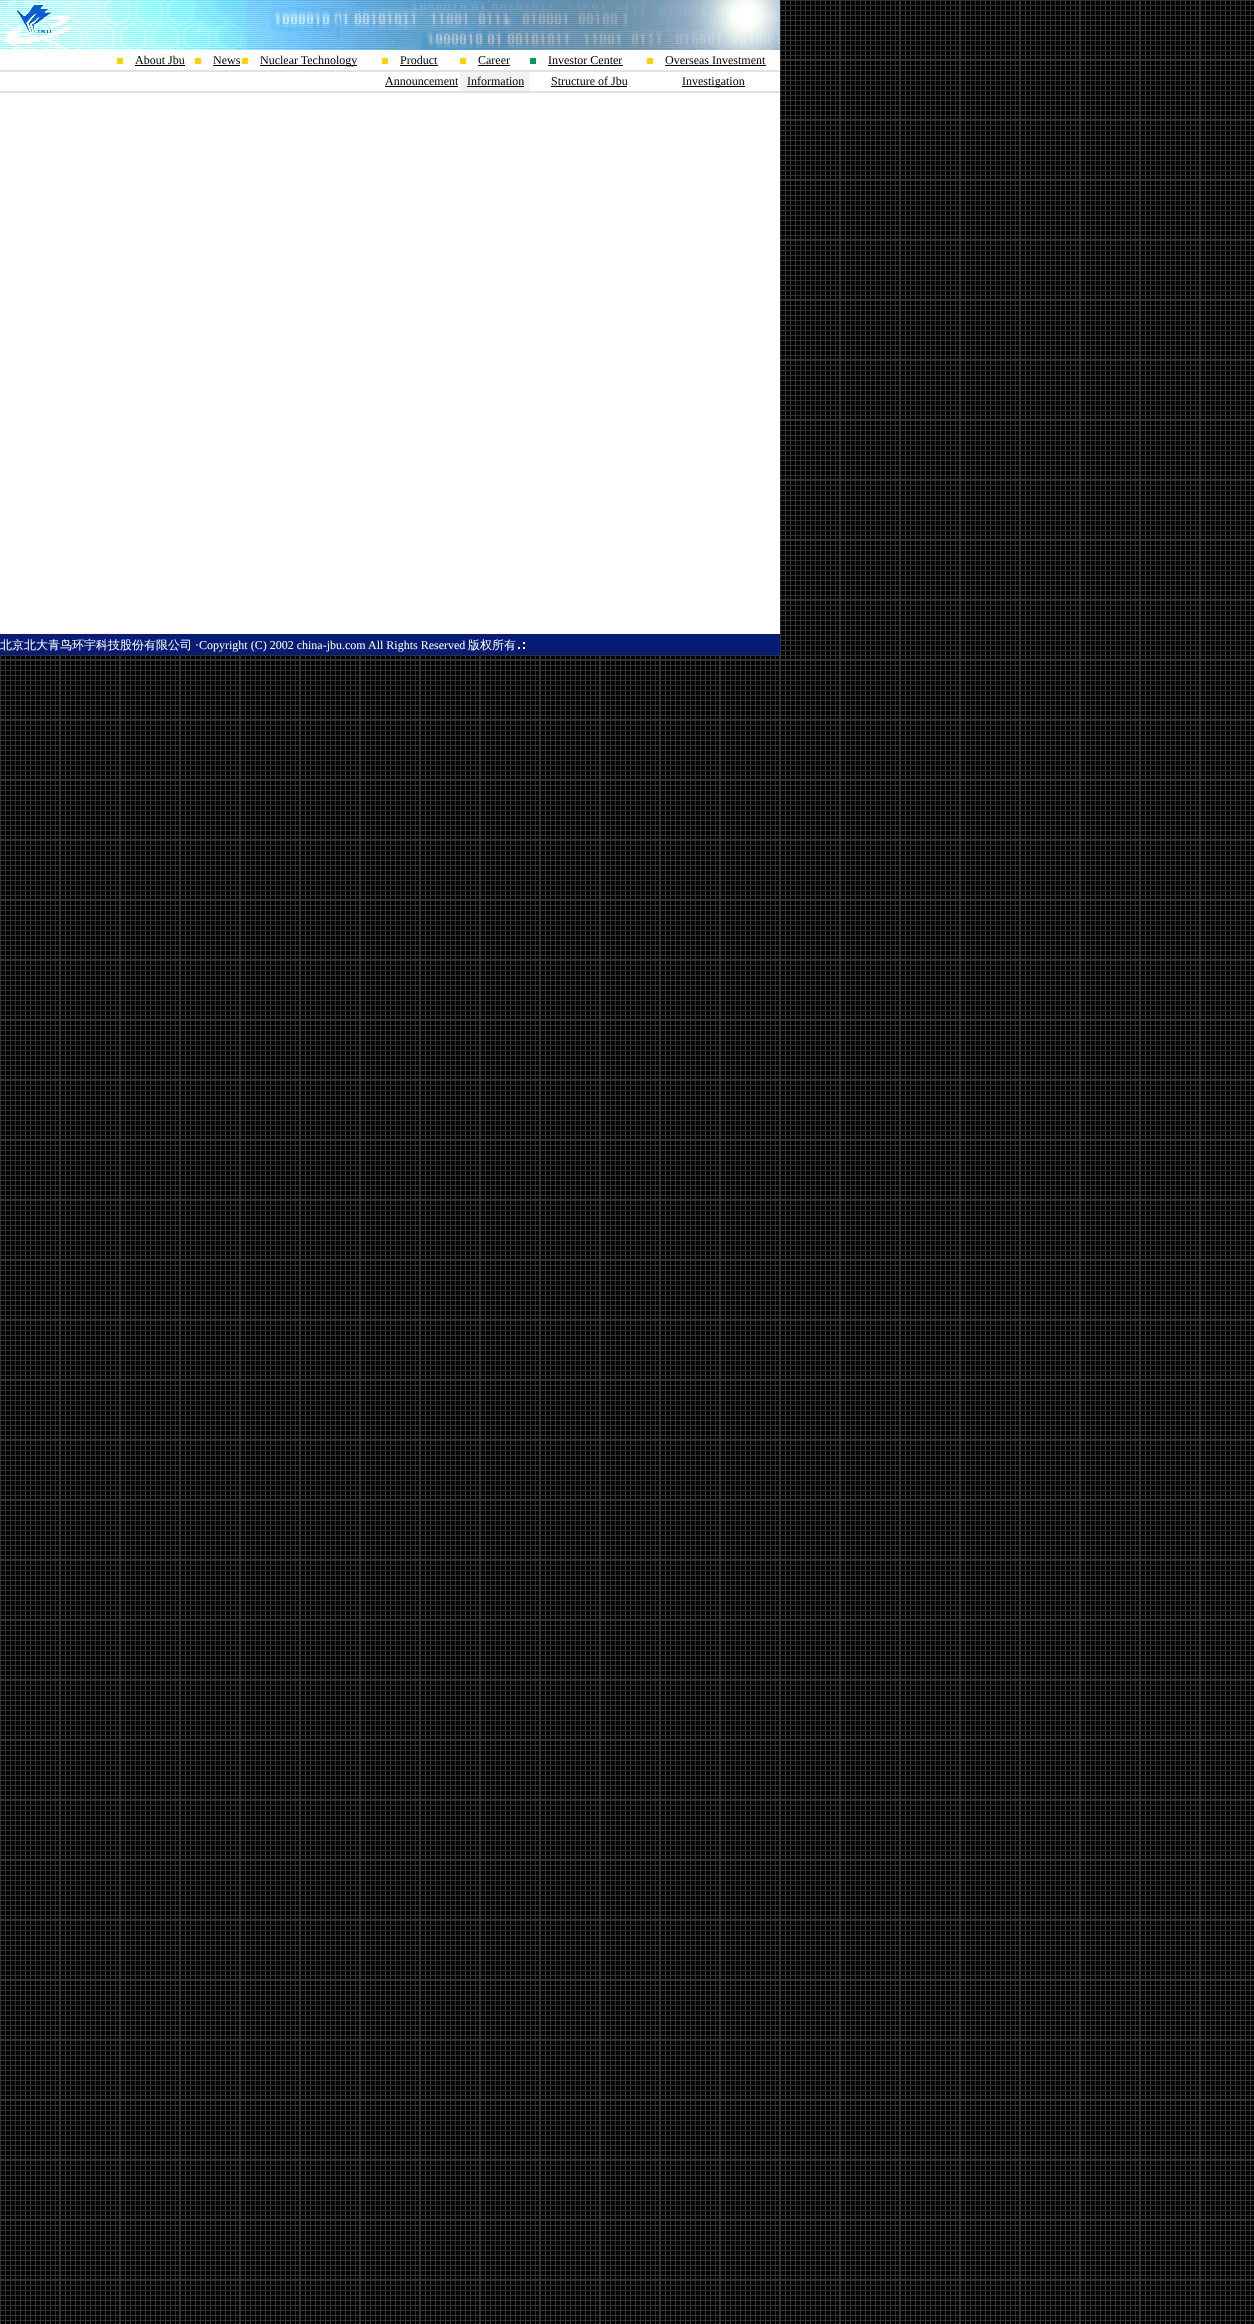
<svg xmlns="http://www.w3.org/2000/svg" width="1254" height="2324">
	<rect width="100%" height="100%" fill="#FFFFFF" />
	<image x="0" y="0" width="1254" height="2324" href="assets/img1.png" />
	<image x="0" y="0" width="780" height="50" href="assets/img2.png" />
	<rect x="0" y="50" width="780" height="20" fill="#FFFFFF" />
	<rect x="117" y="58" width="6" height="6" fill="#FFD200" />
	<text x="135" y="64" font-family="Liberation Serif" font-size="12" fill="#000000">About Jbu</text>
	<rect x="135" y="65" width="50" height="1" fill="#000000" />
	<rect x="195" y="58" width="6" height="6" fill="#FFD200" />
	<text x="213" y="64" font-family="Liberation Serif" font-size="12" fill="#000000">News</text>
	<rect x="213" y="65" width="27" height="1" fill="#000000" />
	<rect x="242" y="58" width="6" height="6" fill="#FFD200" />
	<rect x="260" y="65" width="97" height="1" fill="#000000" />
	<text x="260" y="64" font-family="Liberation Serif" font-size="12" fill="#000000">Nuclear Technology</text>
	<rect x="382" y="58" width="6" height="6" fill="#FFD200" />
	<text x="400" y="64" font-family="Liberation Serif" font-size="12" fill="#000000">Product</text>
	<rect x="400" y="65" width="38" height="1" fill="#000000" />
	<rect x="460" y="58" width="6" height="6" fill="#FFD200" />
	<text x="478" y="64" font-family="Liberation Serif" font-size="12" fill="#000000">Career</text>
	<rect x="478" y="65" width="32" height="1" fill="#000000" />
	<rect x="530" y="58" width="6" height="6" fill="#01975D" />
	<text x="548" y="64" font-family="Liberation Serif" font-size="12" fill="#000000">Investor Center</text>
	<rect x="548" y="65" width="75" height="1" fill="#000000" />
	<rect x="647" y="58" width="6" height="6" fill="#FFD200" />
	<text x="665" y="64" font-family="Liberation Serif" font-size="12" fill="#000000">Overseas Investment</text>
	<rect x="665" y="65" width="101" height="1" fill="#000000" />
	<rect x="0" y="70" width="780" height="2" fill="#E2E2E2" />
	<rect x="0" y="72" width="780" height="19" fill="#FFFFFF" />
	<text x="385" y="85" font-family="Liberation Serif" font-size="12" fill="#000000">Announcement</text>
	<rect x="385" y="86" width="73" height="1" fill="#000000" />
	<rect x="460" y="72" width="70" height="19" fill="#F2F2F2" />
	<text x="467" y="85" font-family="Liberation Serif" font-size="12" fill="#000000">Information</text>
	<rect x="467" y="86" width="57" height="1" fill="#000000" />
	<text x="551" y="85" font-family="Liberation Serif" font-size="12" fill="#000000">Structure of Jbu</text>
	<rect x="551" y="86" width="76" height="1" fill="#000000" />
	<rect x="682" y="86" width="63" height="1" fill="#000000" />
	<text x="682" y="85" font-family="Liberation Serif" font-size="12" fill="#000000">Investigation</text>
	<rect x="0" y="91" width="780" height="2" fill="#E2E2E2" />
	<rect x="0" y="93" width="780" height="541" fill="#FFFFFF" />
	<rect x="0" y="634" width="780" height="21" fill="#081C73" />
	<text x="0" y="649" font-family="WenQuanYi Zen Hei" font-size="12" font-weight="500" fill="#FFFFFF">北京北大青鸟环宇科技股份有限公司</text>
	<text x="195" y="649" font-family="Liberation Serif" font-size="12" fill="#FFFFFF">·Copyright (C) 2002 china-jbu.com All Rights Reserved</text>
	<text x="468" y="649" font-family="WenQuanYi Zen Hei" font-size="12" font-weight="500" fill="#FFFFFF">版权所有</text>
	<image x="518" y="642" width="7" height="7" href="assets/img3.png" />
</svg>
